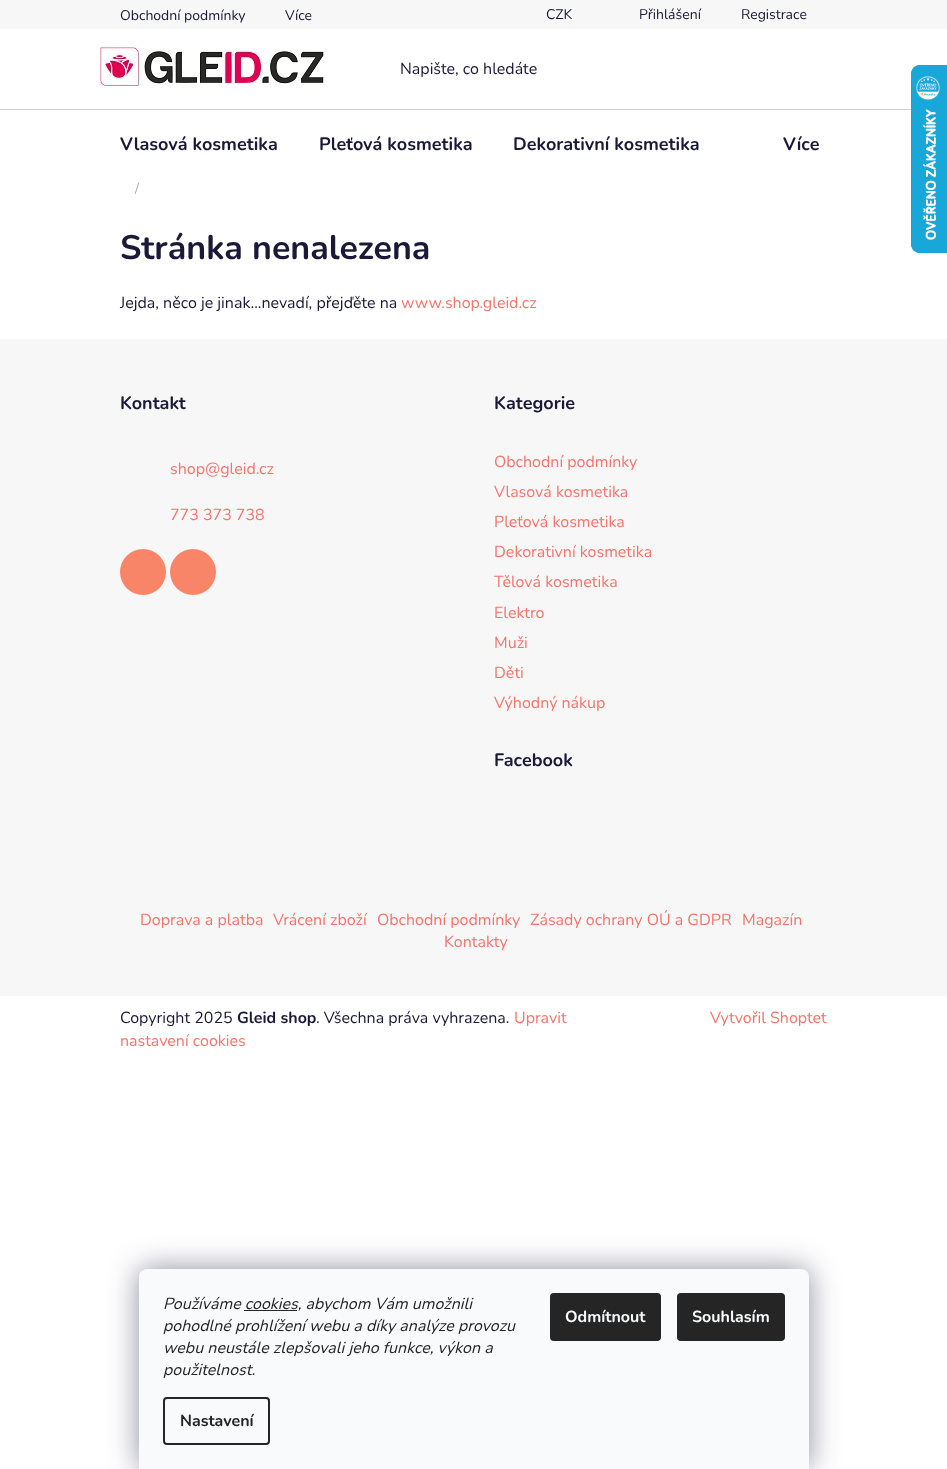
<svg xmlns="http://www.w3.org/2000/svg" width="947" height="1469">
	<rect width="100%" height="100%" fill="#FFFFFF" />
	<rect x="0" y="0" width="947" height="29" fill="#F7F7F7" />
	<g font-family="Nunito" font-size="14" fill="#1A1937">
		<text x="120" y="20">Obchodní podmínky</text>
		<text x="285" y="20">Více</text>
		<text x="546" y="19">CZK</text>
		<text x="639" y="19">Přihlášení</text>
		<text x="741" y="19">Registrace</text>
	</g>
	<image x="100" y="47" width="224" height="39" href="assets/img1.png" />
	<text x="400" y="74" font-family="Nunito" font-size="16" fill="#1A1937">Napište, co hledáte</text>
	<rect x="0" y="109" width="911" height="1" fill="#CFCFCF" />
	<g font-family="Nunito" font-size="18" font-weight="700" fill="#1A1937">
		<text x="120" y="150">Vlasová kosmetika</text>
		<text x="319" y="150">Pleťová kosmetika</text>
		<text x="513" y="150">Dekorativní kosmetika</text>
		<text x="783" y="150">Více</text>
	</g>
	<text x="135" y="193" font-family="Nunito" font-size="14" fill="#AAAAAA">/</text>
	<text x="120" y="259" font-family="Nunito" font-size="34" font-weight="700" fill="#1A1937">Stránka nenalezena</text>
	<text x="120" y="308" font-family="Nunito" font-size="16" fill="#1A1937">Jejda, něco je jinak...nevadí, přejďěte na</text>
	<text x="401" y="308" font-family="Nunito" font-size="16" fill="#F5746B">www.shop.gleid.cz</text>
	<rect x="0" y="339" width="947" height="657" fill="#F7F7F7" />
	<text x="120" y="409" font-family="Nunito" font-size="18" font-weight="700" fill="#1A1937">Kontakt</text>
	<g font-family="Nunito" font-size="16" fill="#F5746B">
		<text x="170" y="474">shop@gleid.cz</text>
		<text x="170" y="520">773 373 738</text>
	</g>
	<circle cx="143" cy="572" r="23" fill="#F88568" />
	<circle cx="193" cy="572" r="23" fill="#F88568" />
	<text x="494" y="409" font-family="Nunito" font-size="18" font-weight="700" fill="#1A1937">Kategorie</text>
	<g font-family="Nunito" font-size="16" fill="#F5746B">
		<text x="494" y="467">Obchodní podmínky</text>
		<text x="494" y="497">Vlasová kosmetika</text>
		<text x="494" y="527">Pleťová kosmetika</text>
		<text x="494" y="557">Dekorativní kosmetika</text>
		<text x="494" y="587">Tělová kosmetika</text>
		<text x="494" y="618">Elektro</text>
		<text x="494" y="648">Muži</text>
		<text x="494" y="678">Děti</text>
		<text x="494" y="708">Výhodný nákup</text>
	</g>
	<text x="494" y="766" font-family="Nunito" font-size="18" font-weight="700" fill="#1A1937">Facebook</text>
	<g font-family="Nunito" font-size="16" fill="#F5746B">
		<text x="140" y="925">Doprava a platba</text>
		<text x="273" y="925">Vrácení zboží</text>
		<text x="377" y="925">Obchodní podmínky</text>
		<text x="530" y="925">Zásady ochrany OÚ a GDPR</text>
		<text x="742" y="925">Magazín</text>
		<text x="444" y="947">Kontakty</text>
	</g>
	<text x="120" y="1023" font-family="Nunito" font-size="16" fill="#1A1937">Copyright 2025</text>
	<text x="237" y="1023" font-family="Nunito" font-size="16" font-weight="700" fill="#1A1937">Gleid shop</text>
	<text x="316" y="1023" font-family="Nunito" font-size="16" fill="#1A1937">. Všechna práva vyhrazena.</text>
	<g font-family="Nunito" font-size="16" fill="#F5746B">
		<text x="514" y="1023">Upravit</text>
		<text x="710" y="1023">Vytvořil Shoptet</text>
		<text x="120" y="1046">nastavení cookies</text>
	</g>
	<image x="911" y="65" width="36" height="188" href="assets/img2.png" />
	<rect x="139" y="1269" width="670" height="200" rx="8" fill="#1B1939" fill-opacity="0.5" filter="blur(15px)" />
	<path d="M147 1269H801C805.5 1269 809 1272.5 809 1277V1469H139V1277C139 1272.5 142.5 1269 147 1269Z" fill="#F8FAFB" />
	<text x="163" y="1309" font-family="Nunito" font-size="16" font-style="italic" fill="#252525">Používáme cookies, abychom Vám umožnili</text>
	<rect x="244" y="1310" width="53" height="1" fill="#252525" />
	<g font-family="Nunito" font-size="16" font-style="italic" fill="#252525">
		<text x="163" y="1331">pohodlné prohlížení webu a díky analýze provozu</text>
		<text x="163" y="1353">webu neustále zlepšovali jeho funkce, výkon a</text>
		<text x="163" y="1375">použitelnost.</text>
	</g>
	<rect x="164" y="1398" width="105" height="46" rx="3" fill="none" stroke="#252525" stroke-width="2" />
	<text x="180" y="1426" font-family="Nunito" font-size="16" font-weight="700" fill="#252525">Nastavení</text>
	<rect x="550" y="1293" width="111" height="48" rx="4" fill="#252525" />
	<text x="565" y="1322" font-family="Nunito" font-size="16" font-weight="700" fill="#F8FAFB">Odmítnout</text>
	<rect x="677" y="1293" width="108" height="48" rx="4" fill="#252525" />
	<text x="692" y="1322" font-family="Nunito" font-size="16" font-weight="700" fill="#F8FAFB">Souhlasím</text>
</svg>
